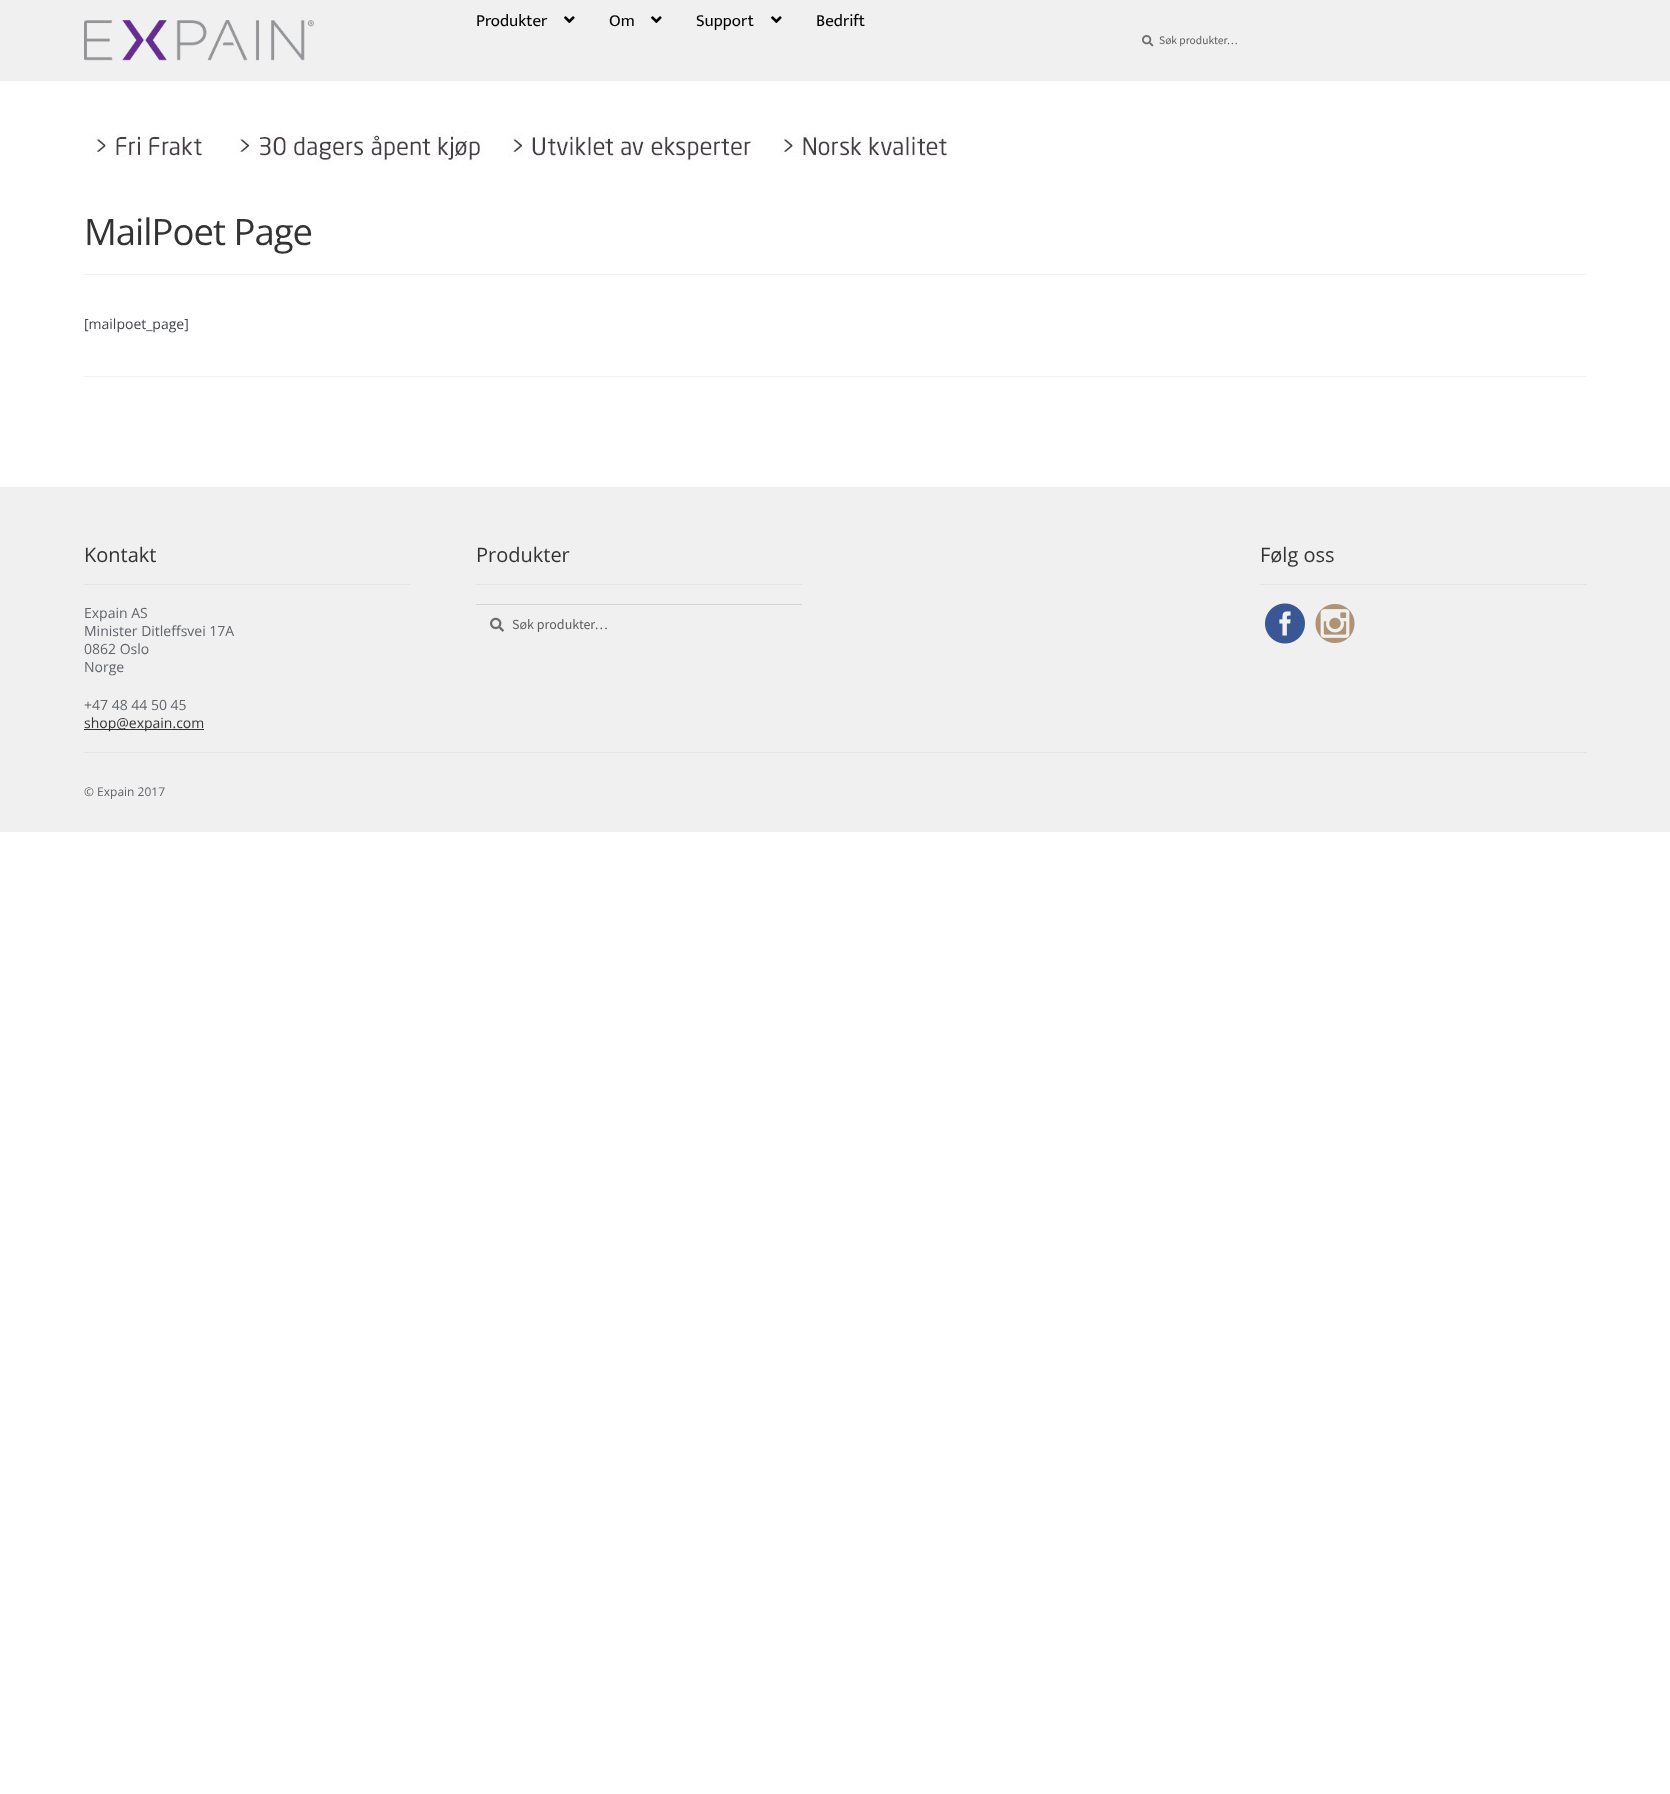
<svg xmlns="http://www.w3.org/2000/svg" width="1670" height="1794">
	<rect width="100%" height="100%" fill="#FFFFFF" />
	<rect x="0" y="0" width="1670" height="81" fill="#F0F0F0" />
	<image x="84" y="20" width="230" height="41" href="assets/img1.png" />
	<text x="476" y="26" font-family="Ek Mukta" font-size="17" fill="#000000">Produkter</text>
	<image x="564" y="16" width="11" height="7" href="assets/img2.png" />
	<text x="609" y="26" font-family="Ek Mukta" font-size="17" fill="#000000">Om</text>
	<image x="651" y="16" width="11" height="7" href="assets/img2.png" />
	<text x="696" y="26" font-family="Ek Mukta" font-size="17" fill="#000000">Support</text>
	<image x="771" y="16" width="11" height="7" href="assets/img2.png" />
	<text x="816" y="26" font-family="Ek Mukta" font-size="17" fill="#000000">Bedrift</text>
	<image x="1142" y="35" width="12" height="12" href="assets/img3.png" />
	<text x="1159" y="44" font-family="Source Sans Pro" font-size="11.5" fill="#616161">Søk produkter…</text>
	<image x="92" y="130" width="856" height="35" href="assets/img4.png" />
	<rect x="84" y="274" width="1503" height="1" fill="#F2F2F2" />
	<text x="84" y="245" font-family="Open Sans" font-size="36.5" letter-spacing="-1" fill="#333333">MailPoet Page</text>
	<text x="84" y="329" font-family="Open Sans" font-size="14" fill="#43454B">[mailpoet_page]</text>
	<rect x="84" y="376" width="1503" height="1" fill="#F2F2F2" />
	<rect x="0" y="487" width="1670" height="345" fill="#F0F0F0" />
	<rect x="84" y="752" width="1503" height="1" fill="#E4E4E4" />
	<rect x="84" y="584" width="326" height="1" fill="#E4E4E4" />
	<text x="84" y="562" font-family="Open Sans" font-size="20" fill="#333333">Kontakt</text>
	<g font-family="Open Sans" font-size="14" fill="#61656B">
		<text x="84" y="618">Expain AS</text>
		<text x="84" y="636">Minister Ditleffsvei 17A</text>
		<text x="84" y="654">0862 Oslo</text>
		<text x="84" y="672">Norge</text>
		<text x="84" y="710">+47 48 44 50 45</text>
	</g>
	<rect x="84" y="729" width="120" height="1" fill="#333333" />
	<text x="84" y="728" font-family="Open Sans" font-size="14" fill="#333333">shop@expain.com</text>
	<rect x="476" y="584" width="326" height="1" fill="#E4E4E4" />
	<text x="476" y="562" font-family="Open Sans" font-size="20" fill="#333333">Produkter</text>
	<image x="490" y="617" width="14" height="15" href="assets/img5.png" />
	<rect x="476" y="604" width="326" height="1" fill="#D4D4D4" />
	<text x="512" y="629" font-family="Source Sans Pro" font-size="14" fill="#616161">Søk produkter…</text>
	<rect x="1260" y="584" width="327" height="1" fill="#E4E4E4" />
	<text x="1260" y="562" font-family="Open Sans" font-size="20" fill="#333333">Følg oss</text>
	<image x="1265" y="603" width="40" height="41" href="assets/img6.png" />
	<image x="1315" y="604" width="40" height="39" href="assets/img7.png" />
	<text x="84" y="796" font-family="Open Sans" font-size="12" fill="#61656B">© Expain 2017</text>
</svg>
